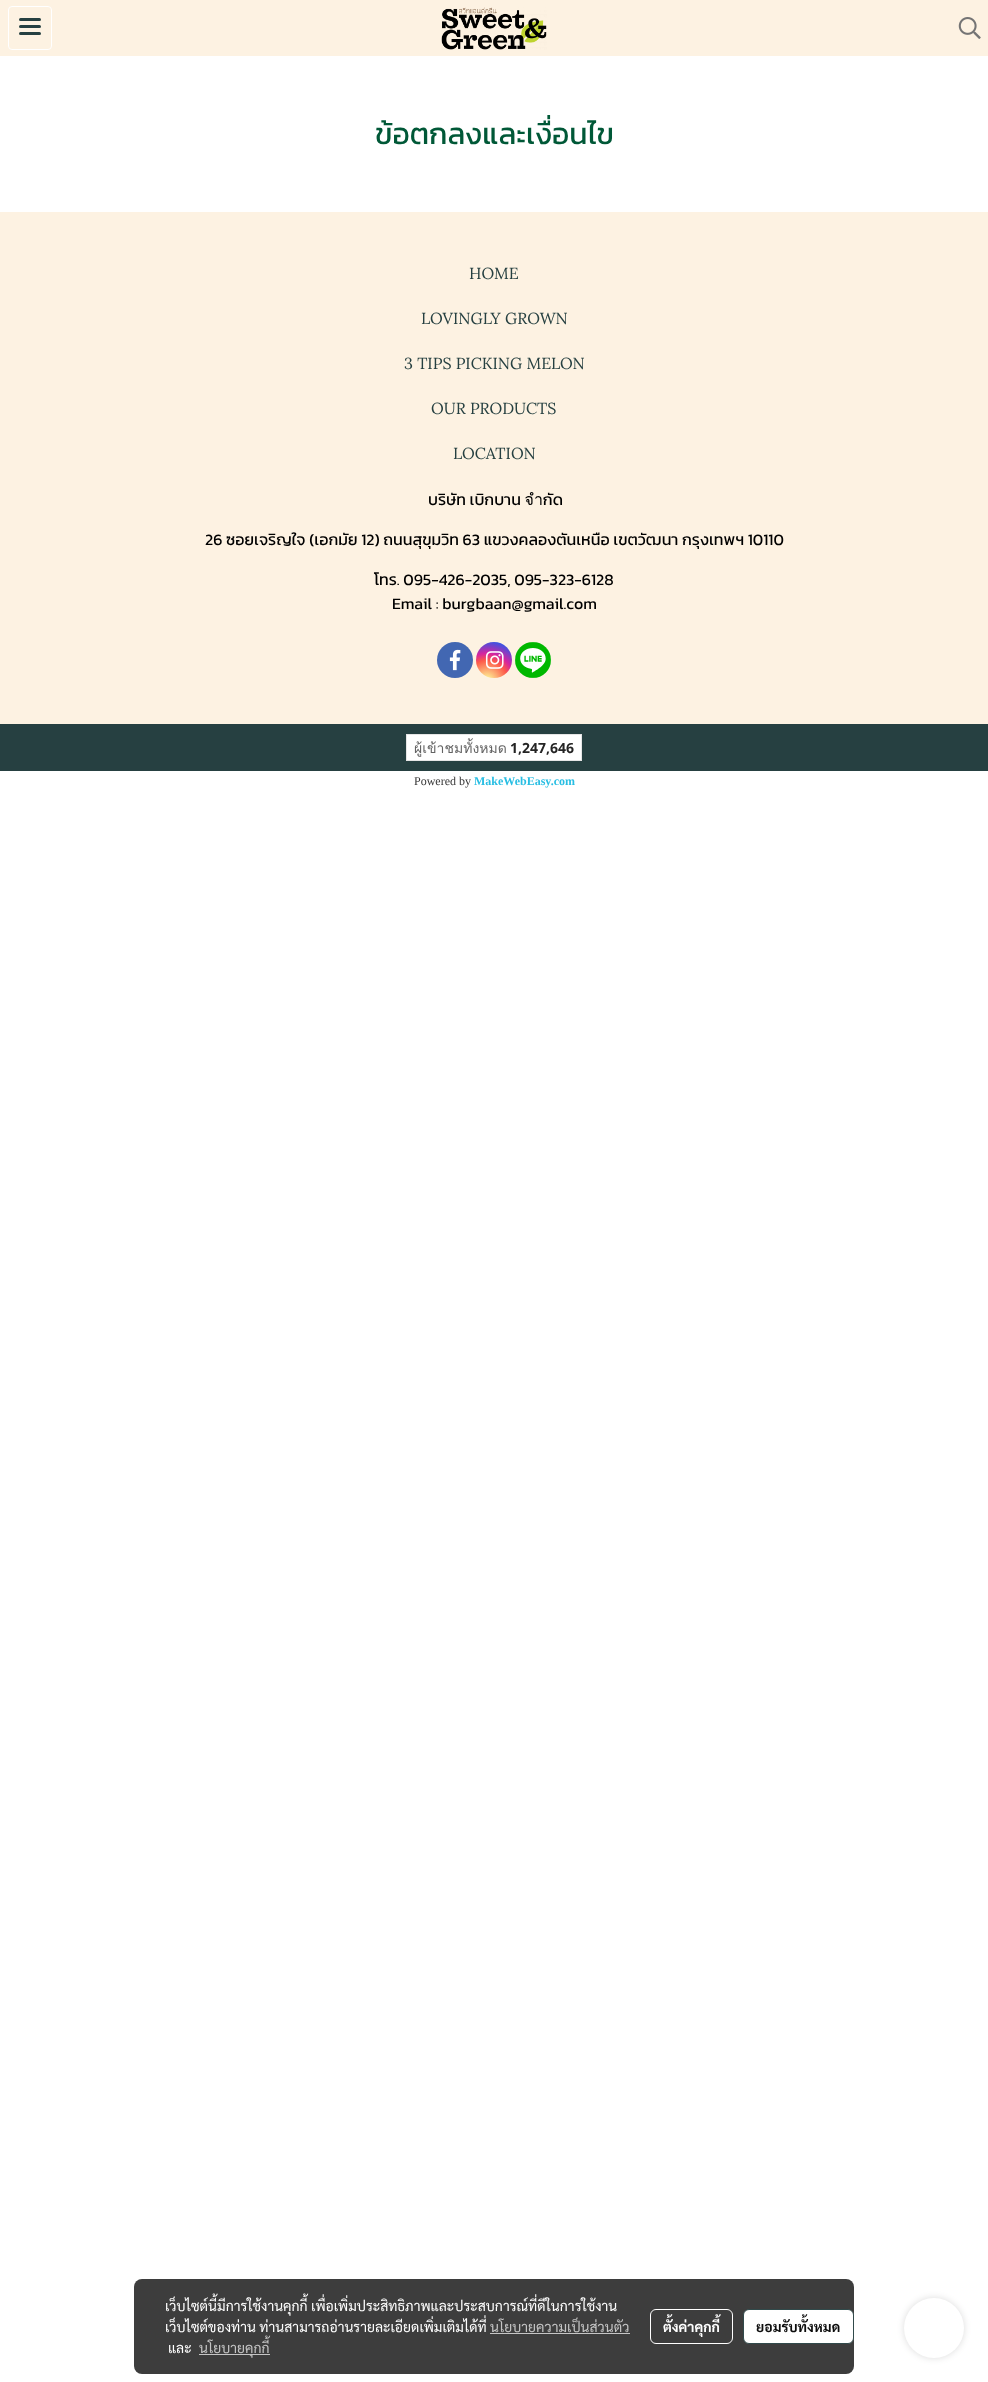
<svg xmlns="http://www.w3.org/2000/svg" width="988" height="2382">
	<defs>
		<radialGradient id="g1" gradientUnits="userSpaceOnUse" cx="487" cy="681" r="46"><stop offset="0" stop-color="#FDF497" /><stop offset="0.05" stop-color="#FDF497" /><stop offset="0.45" stop-color="#FD5949" /><stop offset="0.6" stop-color="#D6249F" /><stop offset="0.9" stop-color="#285AEB" /></radialGradient>
	</defs>
	<rect width="100%" height="100%" fill="#FFFFFF" />
	<rect x="0" y="0" width="988" height="56" fill="#FDF2E2" />
	<rect x="8.5" y="6.5" width="43" height="43" rx="3.5" fill="none" stroke="#FFFFFF" />
	<rect x="19" y="25" width="22" height="3" rx="1.5" fill="#264041" />
	<rect x="19" y="18" width="22" height="3" rx="1.5" fill="#264041" />
	<rect x="19" y="32" width="22" height="3" rx="1.5" fill="#264041" />
	<image x="441" y="7" width="106" height="43" href="assets/img1.png" />
	<image x="958" y="17" width="23" height="22" href="assets/img2.png" />
	<text x="375" y="144" font-family="Kanit" font-size="30" fill="#005837">ข้อตกลงและเงื่อนไข</text>
	<rect x="0" y="212" width="988" height="512" fill="#FDF2E2" />
	<g font-family="Lora" font-size="16" fill="#264041">
		<text x="469" y="279">HOME</text>
		<text x="421" y="324">LOVINGLY GROWN</text>
		<text x="404" y="369">3 TIPS PICKING MELON</text>
		<text x="431" y="414">OUR PRODUCTS</text>
		<text x="453" y="459">LOCATION</text>
	</g>
	<g font-family="Kanit" font-size="16" fill="#000000">
		<text x="428" y="505">บริษัท เบิกบาน จำกัด</text>
		<text x="205" y="545">26 ซอยเจริญใจ (เอกมัย 12) ถนนสุขุมวิท 63 แขวงคลองตันเหนือ เขตวัฒนา กรุงเทพฯ 10110</text>
		<text x="374" y="585">โทร. 095-426-2035, 095-323-6128</text>
		<text x="392" y="609">Email : burgbaan@gmail.com</text>
	</g>
	<circle cx="455" cy="660" r="18" fill="#4267B2" />
	<image x="449" y="649" width="12" height="22" href="assets/img3.png" />
	<circle cx="494" cy="660" r="18" fill="url(#g1)" />
	<image x="485" y="651" width="19" height="18" href="assets/img4.png" />
	<circle cx="533" cy="660" r="18" fill="#00B800" />
	<image x="515" y="642" width="36" height="36" href="assets/img5.png" />
	<rect x="0" y="724" width="988" height="47" fill="#264041" />
	<rect x="406.5" y="734.5" width="175" height="26" fill="#FFFFFF" stroke="#E5E5E5" />
	<text x="414" y="753" font-family="Loma" font-size="14" fill="#636363">ผู้เข้าชมทั้งหมด</text>
	<text x="510" y="753" font-family="Open Sans" font-size="14" font-weight="700" fill="#242424">1,247,646</text>
	<text x="414" y="785" font-family="Liberation Serif" font-size="12" fill="#353535">Powered by</text>
	<text x="474" y="785" font-family="Liberation Serif" font-size="12" font-weight="700" fill="#28BEE3">MakeWebEasy.com</text>
	<rect x="134" y="2279" width="720" height="95" rx="8" fill="#3D3D3D" />
	<g font-family="Sarabun" font-size="14" fill="#FFFFFF">
		<text x="165" y="2311">เว็บไซต์นี้มีการใช้งานคุกกี้ เพื่อเพิ่มประสิทธิภาพและประสบการณ์ที่ดีในการใช้งาน</text>
		<text x="165" y="2332">เว็บไซต์ของท่าน ท่านสามารถอ่านรายละเอียดเพิ่มเติมได้ที่</text>
	</g>
	<text x="490" y="2332" font-family="Sarabun" font-size="14" fill="#C5C5C5">นโยบายความเป็นส่วนตัว</text>
	<rect x="490" y="2333" width="140" height="1" fill="#C5C5C5" />
	<text x="168" y="2353" font-family="Sarabun" font-size="14" fill="#FFFFFF">และ</text>
	<rect x="199" y="2354" width="71" height="1" fill="#C5C5C5" />
	<text x="199" y="2353" font-family="Sarabun" font-size="14" fill="#C5C5C5">นโยบายคุกกี้</text>
	<rect x="650.5" y="2309.5" width="82" height="34" rx="5.5" fill="none" stroke="#FFFFFF" />
	<text x="663" y="2332" font-family="Sarabun" font-size="14" font-weight="700" fill="#FFFFFF">ตั้งค่าคุกกี้</text>
	<rect x="743.5" y="2309.5" width="110" height="34" rx="5.5" fill="#FFFFFF" stroke="#314A4B" />
	<text x="756" y="2332" font-family="Sarabun" font-size="14" font-weight="700" fill="#0D0D0D">ยอมรับทั้งหมด</text>
	<rect x="904" y="2298" width="60" height="60" rx="30" fill="#000000" fill-opacity="0.14" filter="blur(3.5px)" />
	<circle cx="934" cy="2328" r="30" fill="#FFFFFF" />
</svg>
